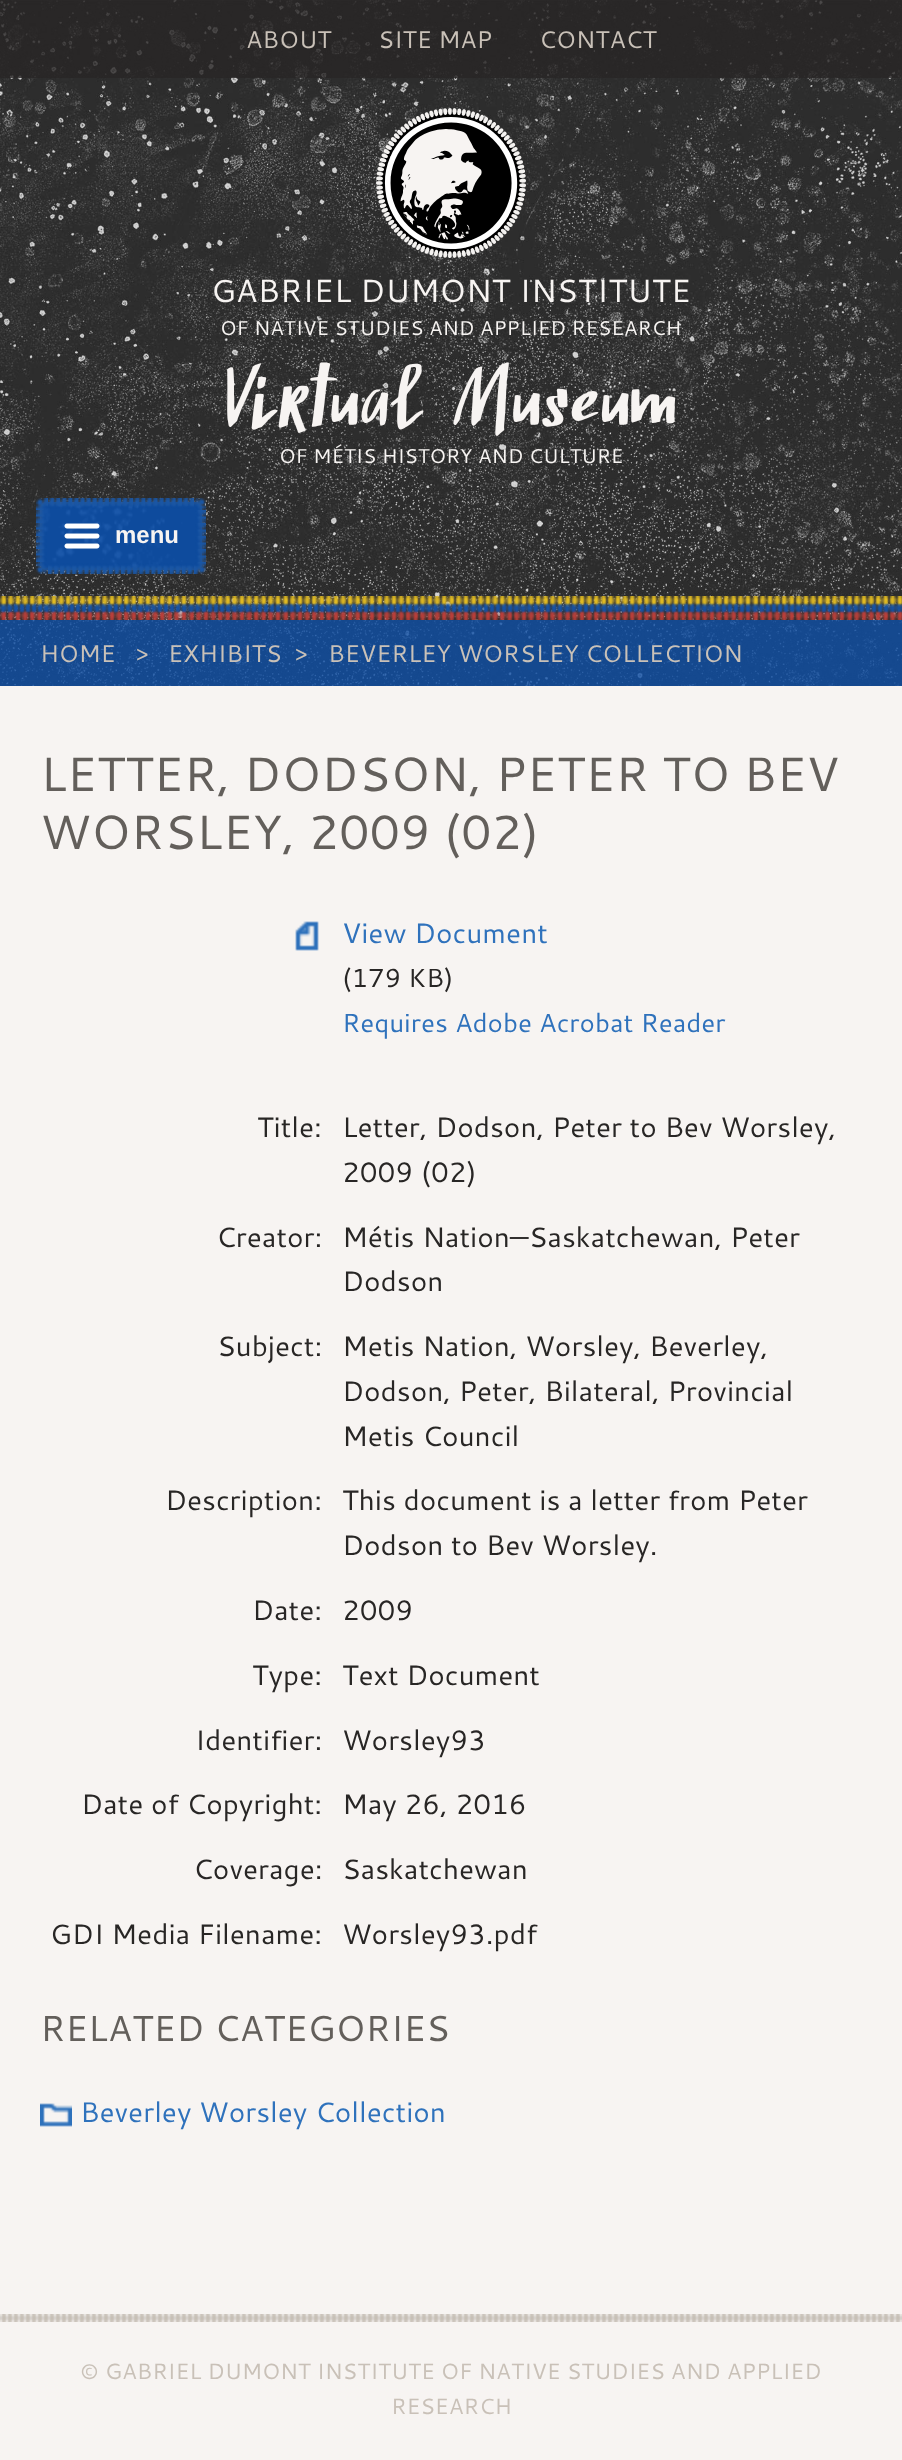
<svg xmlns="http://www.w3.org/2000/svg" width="902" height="2460">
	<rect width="100%" height="100%" fill="#F7F4F2" />
	<image x="0" y="0" width="902" height="686" href="assets/img1.png" />
	<rect x="0" y="0" width="902" height="78" fill="#282625" fill-opacity="0.8" />
	<g font-family="Cantarell" font-size="24" fill="#C9C1B8">
		<text x="246" y="48">ABOUT</text>
		<text x="378" y="48">SITE MAP</text>
		<text x="539" y="48">CONTACT</text>
	</g>
	<image x="0" y="596" width="902" height="24" href="assets/img2.png" />
	<image x="376" y="108" width="150" height="150" href="assets/img3.png" />
	<text x="211" y="302" font-family="Cantarell" font-size="32" fill="#F7F4F2">GABRIEL DUMONT INSTITUTE</text>
	<text x="220" y="335" font-family="Cantarell" font-size="20" fill="#F7F4F2">OF NATIVE STUDIES AND APPLIED RESEARCH</text>
	<text x="225" y="427" font-family="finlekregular" font-size="88" fill="#F7F4F2">Virtual Museum</text>
	<text x="279" y="463" font-family="Cantarell" font-size="20" fill="#F7F4F2">OF MÉTIS HISTORY AND CULTURE</text>
	<rect x="40" y="502" width="162" height="68" rx="6" fill="#0F50A8" />
	<image x="40" y="502" width="162" height="68" href="assets/img4.png" />
	<image x="36" y="498" width="170" height="76" href="assets/img5.png" />
	<image x="64" y="523" width="36" height="26" href="assets/img6.png" />
	<text x="115" y="543" font-family="Liberation Sans" font-size="24" font-weight="700" fill="#F7F4F2">menu</text>
	<rect x="0" y="620" width="902" height="66" fill="#0F50A8" fill-opacity="0.8" />
	<g font-family="Cantarell" font-size="24" fill="#C9C1B8">
		<text x="40" y="662">HOME</text>
		<text x="136" y="662">&gt;</text>
		<text x="168" y="662">EXHIBITS</text>
		<text x="295" y="662">&gt;</text>
		<text x="328" y="662">BEVERLEY WORSLEY COLLECTION</text>
	</g>
	<g font-family="Cantarell" font-size="48" fill="#635F5B">
		<text x="40" y="791">LETTER, DODSON, PETER TO BEV</text>
		<text x="40" y="849">WORSLEY, 2009 (02)</text>
	</g>
	<image x="295" y="921" width="24" height="30" href="assets/img7.png" />
	<text x="342" y="943" font-family="Cantarell" font-size="28" fill="#2F72BC">View Document</text>
	<text x="342" y="987" font-family="Cantarell" font-size="26" fill="#282625">(179 KB)</text>
	<text x="342" y="1032" font-family="Cantarell" font-size="26" fill="#2F72BC">Requires Adobe Acrobat Reader</text>
	<g font-family="Cantarell" font-size="28" fill="#282625">
		<text x="257" y="1137">Title:</text>
		<text x="342" y="1137">Letter, Dodson, Peter to Bev Worsley,</text>
		<text x="342" y="1182">2009 (02)</text>
		<text x="216" y="1247">Creator:</text>
		<text x="342" y="1247">Métis Nation—Saskatchewan, Peter</text>
		<text x="342" y="1291">Dodson</text>
		<text x="217" y="1356">Subject:</text>
		<text x="342" y="1356">Metis Nation, Worsley, Beverley,</text>
		<text x="342" y="1401">Dodson, Peter, Bilateral, Provincial</text>
		<text x="342" y="1446">Metis Council</text>
		<text x="165" y="1510">Description:</text>
		<text x="342" y="1510">This document is a letter from Peter</text>
		<text x="342" y="1555">Dodson to Bev Worsley.</text>
		<text x="252" y="1620">Date:</text>
		<text x="342" y="1620">2009</text>
		<text x="252" y="1685">Type:</text>
		<text x="342" y="1685">Text Document</text>
		<text x="195" y="1750">Identifier:</text>
		<text x="342" y="1750">Worsley93</text>
		<text x="81" y="1814">Date of Copyright:</text>
		<text x="342" y="1814">May 26, 2016</text>
		<text x="193" y="1879">Coverage:</text>
		<text x="342" y="1879">Saskatchewan</text>
		<text x="50" y="1944">GDI Media Filename:</text>
		<text x="342" y="1944">Worsley93.pdf</text>
	</g>
	<text x="40" y="2041" font-family="Cantarell" font-size="36" fill="#635F5B">RELATED CATEGORIES</text>
	<image x="40" y="2103" width="32" height="24" href="assets/img8.png" />
	<text x="80" y="2122" font-family="Cantarell" font-size="28" fill="#2F72BC">Beverley Worsley Collection</text>
	<image x="0" y="2314" width="902" height="8" href="assets/img9.png" />
	<g font-family="Cantarell" font-size="22" fill="#C9C1B8">
		<text x="80" y="2379">© GABRIEL DUMONT INSTITUTE OF NATIVE STUDIES AND APPLIED</text>
		<text x="391" y="2414">RESEARCH</text>
	</g>
</svg>
